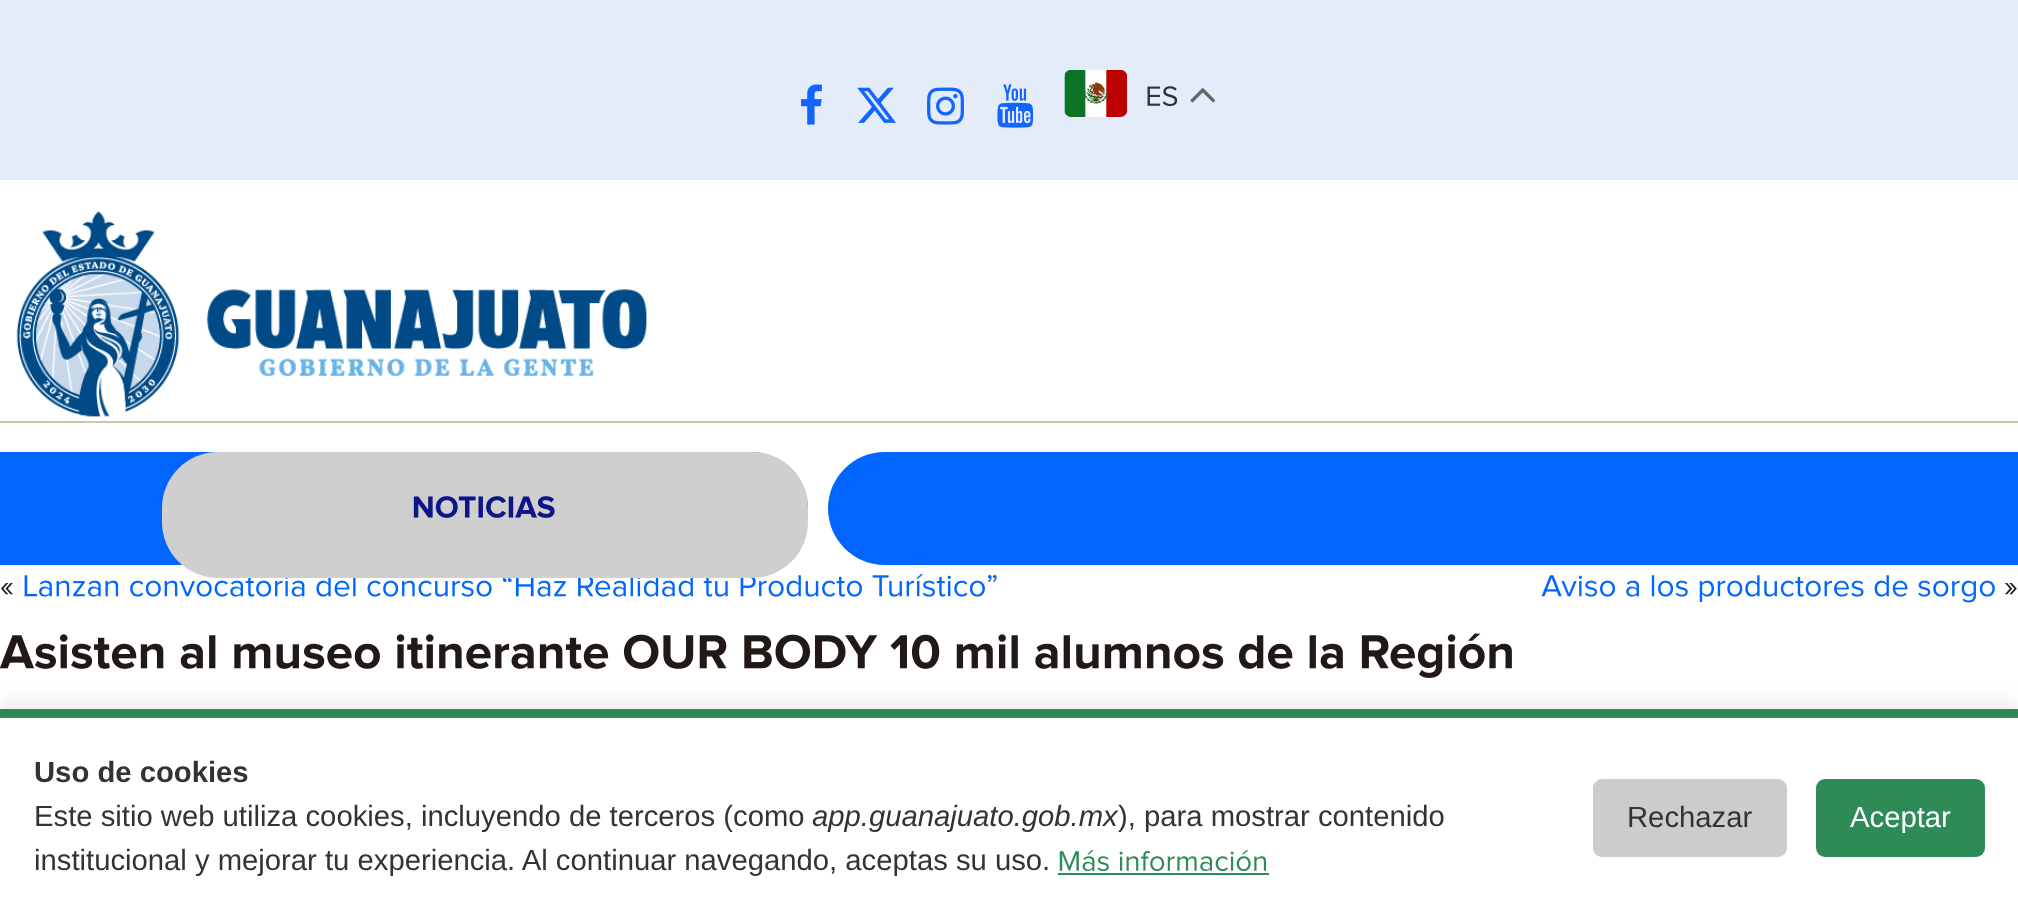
<svg xmlns="http://www.w3.org/2000/svg" width="2018" height="916">
	<rect width="100%" height="100%" fill="#FFFFFF" />
	<rect x="0" y="0" width="2018" height="180" fill="#E4ECFA" />
	<image x="801" y="84" width="21" height="41" href="assets/img1.png" />
	<image x="857" y="87" width="39" height="36" href="assets/img2.png" />
	<image x="927" y="87" width="37" height="38" href="assets/img3.png" />
	<image x="997" y="84" width="37" height="44" href="assets/img4.png" />
	<image x="1064" y="70" width="63" height="47" href="assets/img5.png" />
	<image x="1147" y="86" width="31" height="21" href="assets/img6.png" />
	<image x="1190" y="88" width="25" height="15" href="assets/img7.png" />
	<image x="16" y="211" width="632" height="206" href="assets/img8.png" />
	<rect x="0" y="421" width="2018" height="2" fill="#C8C8AA" />
	<path d="M0 452H751.5C782.5 452 808 477.5 808 508.5C808 539.5 782.5 565 751.5 565H0Z" fill="#0066FF" />
	<image x="24" y="574" width="973" height="23" href="assets/img11.png" />
	<rect x="162" y="452" width="646" height="126" rx="56" fill="#CFCFCF" />
	<image x="413" y="496" width="142" height="22" href="assets/img9.png" />
	<path d="M884.5 452H2018V565H884.5C853.5 565 828 539.5 828 508.5C828 477.5 853.5 452 884.5 452Z" fill="#0066FF" />
	<image x="1" y="583" width="12" height="12" href="assets/img10.png" />
	<image x="1541" y="575" width="454" height="28" href="assets/img12.png" />
	<image x="2005" y="583" width="12" height="12" href="assets/img13.png" />
	<image x="0" y="633" width="1512" height="45" href="assets/img14.png" />
	<rect x="0" y="704" width="2018" height="210" fill="#000000" fill-opacity="0.1" filter="blur(11px)" />
	<rect x="0" y="718" width="2018" height="198" fill="#FFFFFF" />
	<rect x="0" y="709" width="2018" height="9" fill="#2E8B57" />
	<text x="34" y="782" font-family="Liberation Sans" font-size="29.25" font-weight="700" fill="#333333">Uso de cookies</text>
	<text x="34" y="826" font-family="Liberation Sans" font-size="29.25" fill="#333333">Este sitio web utiliza cookies, incluyendo de terceros (como</text>
	<text x="812" y="826" font-family="Liberation Sans" font-size="29.25" font-style="italic" fill="#333333">app.guanajuato.gob.mx</text>
	<g font-family="Liberation Sans" font-size="29.25" fill="#333333">
		<text x="1118" y="826">), para mostrar contenido</text>
		<text x="34" y="870">institucional y mejorar tu experiencia. Al continuar navegando, aceptas su uso.</text>
	</g>
	<image x="1059" y="850" width="208" height="22" href="assets/img15.png" />
	<rect x="1058" y="873" width="211" height="2" fill="#2E8B57" />
	<rect x="1593" y="779" width="194" height="78" rx="9" fill="#CCCCCC" />
	<text x="1627" y="827" font-family="Liberation Sans" font-size="29.25" fill="#333333">Rechazar</text>
	<rect x="1816" y="779" width="169" height="78" rx="9" fill="#2E8B57" />
	<text x="1850" y="827" font-family="Liberation Sans" font-size="29.25" fill="#FFFFFF">Aceptar</text>
</svg>
